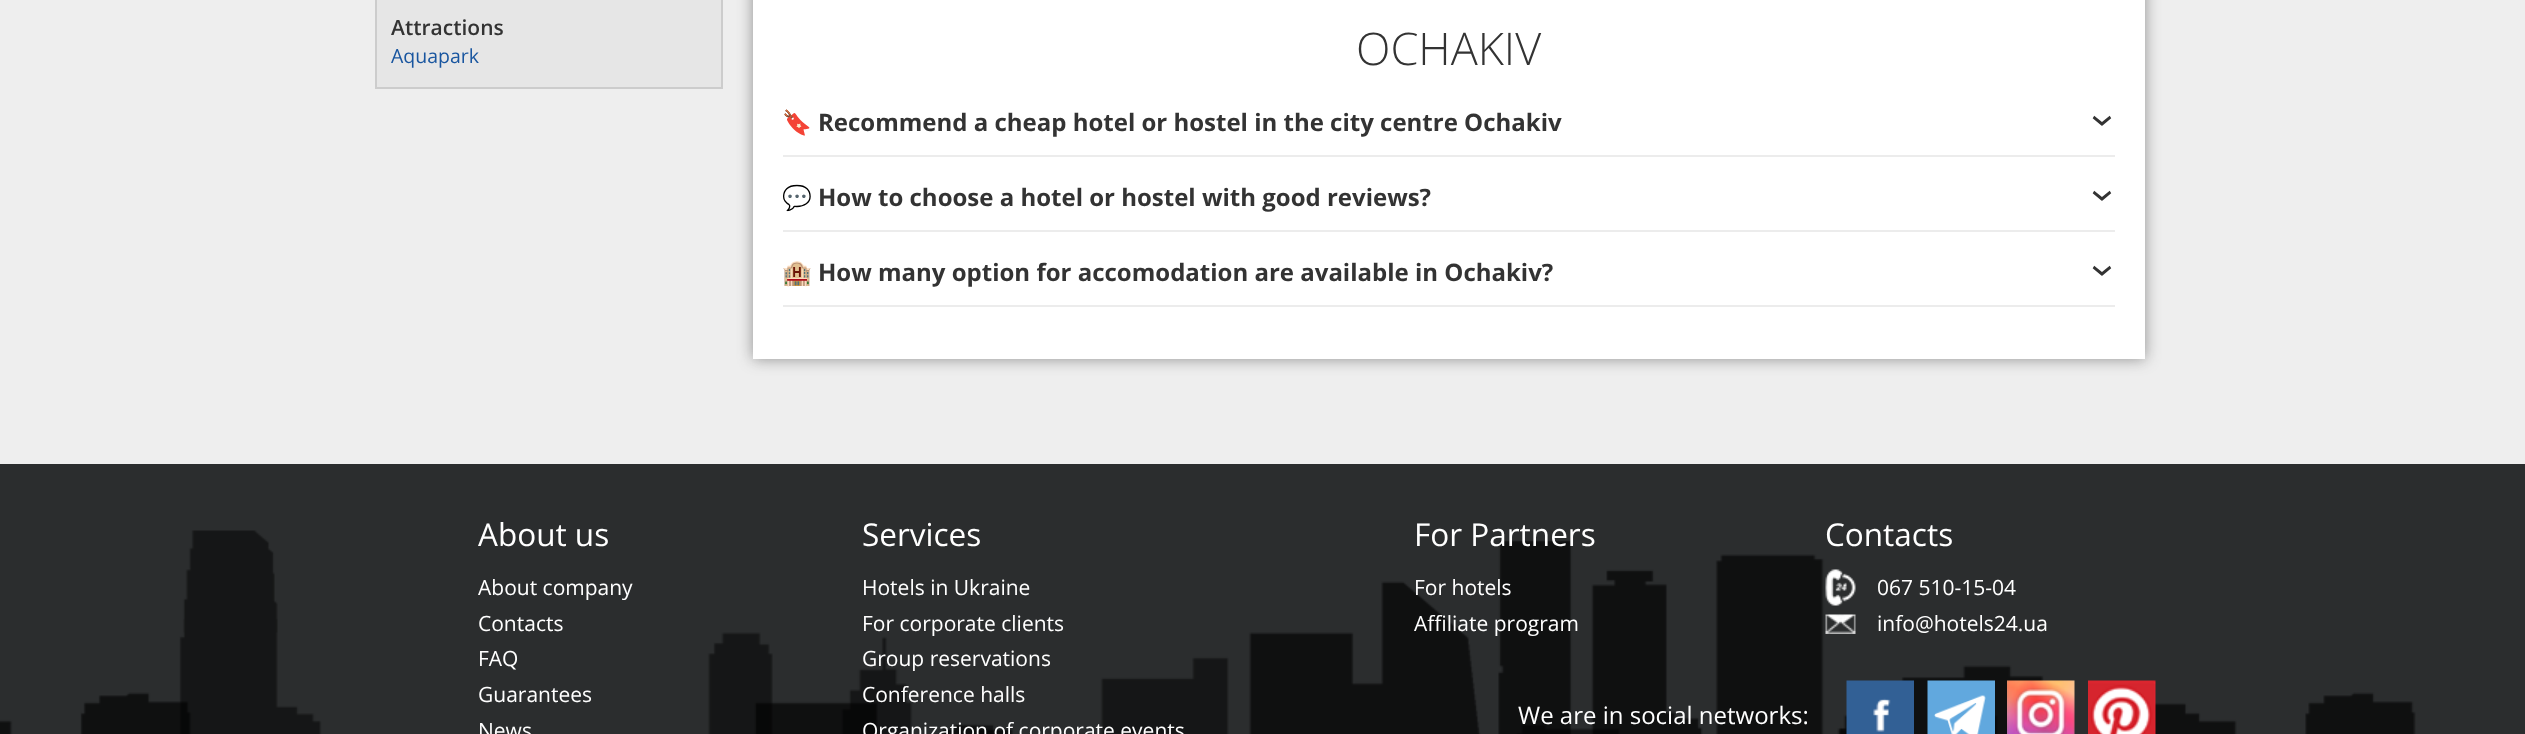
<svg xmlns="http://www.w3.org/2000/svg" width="2525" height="734">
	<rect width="100%" height="100%" fill="#EEEEEE" />
	<rect x="376" y="-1" width="346" height="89" fill="#E6E6E6" stroke="#CCCCCC" stroke-width="2" />
	<text x="391" y="35" font-family="Open Sans" font-size="21" font-weight="600" fill="#333333">Attractions</text>
	<text x="391" y="63" font-family="Open Sans" font-size="19.5" fill="#18559F">Aquapark</text>
	<rect x="753" y="-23" width="1392" height="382" fill="#323232" fill-opacity="0.5" filter="blur(7.5px)" />
	<rect x="753" y="0" width="1392" height="359" fill="#FFFFFF" />
	<text x="1356" y="65" font-family="Open Sans" font-size="45" font-weight="300" fill="#333333">OCHAKIV</text>
	<rect x="783" y="155" width="1332" height="2" fill="#ECECEC" />
	<text x="782" y="131" font-family="Noto Color Emoji" font-size="24" font-weight="700" fill="#333333">🔖</text>
	<text x="818" y="131" font-family="Open Sans" font-size="24" font-weight="700" fill="#333333">Recommend a cheap hotel or hostel in the city centre Ochakiv</text>
	<text x="2090" y="114" transform="rotate(90 2090 114)" font-family="Open Sans" font-size="45" fill="#333333">›</text>
	<rect x="783" y="230" width="1332" height="2" fill="#ECECEC" />
	<text x="782" y="206" font-family="Noto Color Emoji" font-size="24" font-weight="700" fill="#333333">💬</text>
	<text x="818" y="206" font-family="Open Sans" font-size="24" font-weight="700" fill="#333333">How to choose a hotel or hostel with good reviews?</text>
	<text x="2090" y="189" transform="rotate(90 2090 189)" font-family="Open Sans" font-size="45" fill="#333333">›</text>
	<rect x="783" y="305" width="1332" height="2" fill="#ECECEC" />
	<text x="782" y="281" font-family="Noto Color Emoji" font-size="24" font-weight="700" fill="#333333">🏨</text>
	<text x="818" y="281" font-family="Open Sans" font-size="24" font-weight="700" fill="#333333">How many option for accomodation are available in Ochakiv?</text>
	<text x="2090" y="264" transform="rotate(90 2090 264)" font-family="Open Sans" font-size="45" fill="#333333">›</text>
	<rect x="0" y="464" width="2525" height="270" fill="#2B2D2E" />
	<image x="0" y="530" width="2416" height="204" href="assets/img1.png" />
	<text x="478" y="546" font-family="Open Sans" font-size="31.5" fill="#FFFFFF">About us</text>
	<g font-family="Open Sans" font-size="21" fill="#FFFFFF">
		<text x="478" y="595">About company</text>
		<text x="478" y="631">Contacts</text>
		<text x="478" y="666">FAQ</text>
		<text x="478" y="702">Guarantees</text>
		<text x="478" y="738">News</text>
	</g>
	<text x="862" y="546" font-family="Open Sans" font-size="31.5" fill="#FFFFFF">Services</text>
	<g font-family="Open Sans" font-size="21" fill="#FFFFFF">
		<text x="862" y="595">Hotels in Ukraine</text>
		<text x="862" y="631">For corporate clients</text>
		<text x="862" y="666">Group reservations</text>
		<text x="862" y="702">Conference halls</text>
		<text x="862" y="738">Organization of corporate events</text>
	</g>
	<text x="1414" y="546" font-family="Open Sans" font-size="31.5" fill="#FFFFFF">For Partners</text>
	<g font-family="Open Sans" font-size="21" fill="#FFFFFF">
		<text x="1414" y="595">For hotels</text>
		<text x="1414" y="631">Affiliate program</text>
	</g>
	<text x="1825" y="546" font-family="Open Sans" font-size="31.5" fill="#FFFFFF">Contacts</text>
	<image x="1825" y="569" width="31" height="37" href="assets/img2.png" />
	<text x="1877" y="595" font-family="Open Sans" font-size="21" fill="#FFFFFF">067 510-15-04</text>
	<image x="1825" y="614" width="31" height="20" href="assets/img3.png" />
	<text x="1877" y="631" font-family="Open Sans" font-size="21" fill="#FFFFFF">info@hotels24.ua</text>
	<text x="1518" y="724" font-family="Open Sans" font-size="24" fill="#FFFFFF">We are in social networks:</text>
	<image x="1846" y="680" width="68" height="54" href="assets/img4.png" />
	<image x="1927" y="680" width="68" height="54" href="assets/img5.png" />
	<image x="2007" y="680" width="68" height="54" href="assets/img6.png" />
	<image x="2088" y="680" width="68" height="54" href="assets/img7.png" />
</svg>
